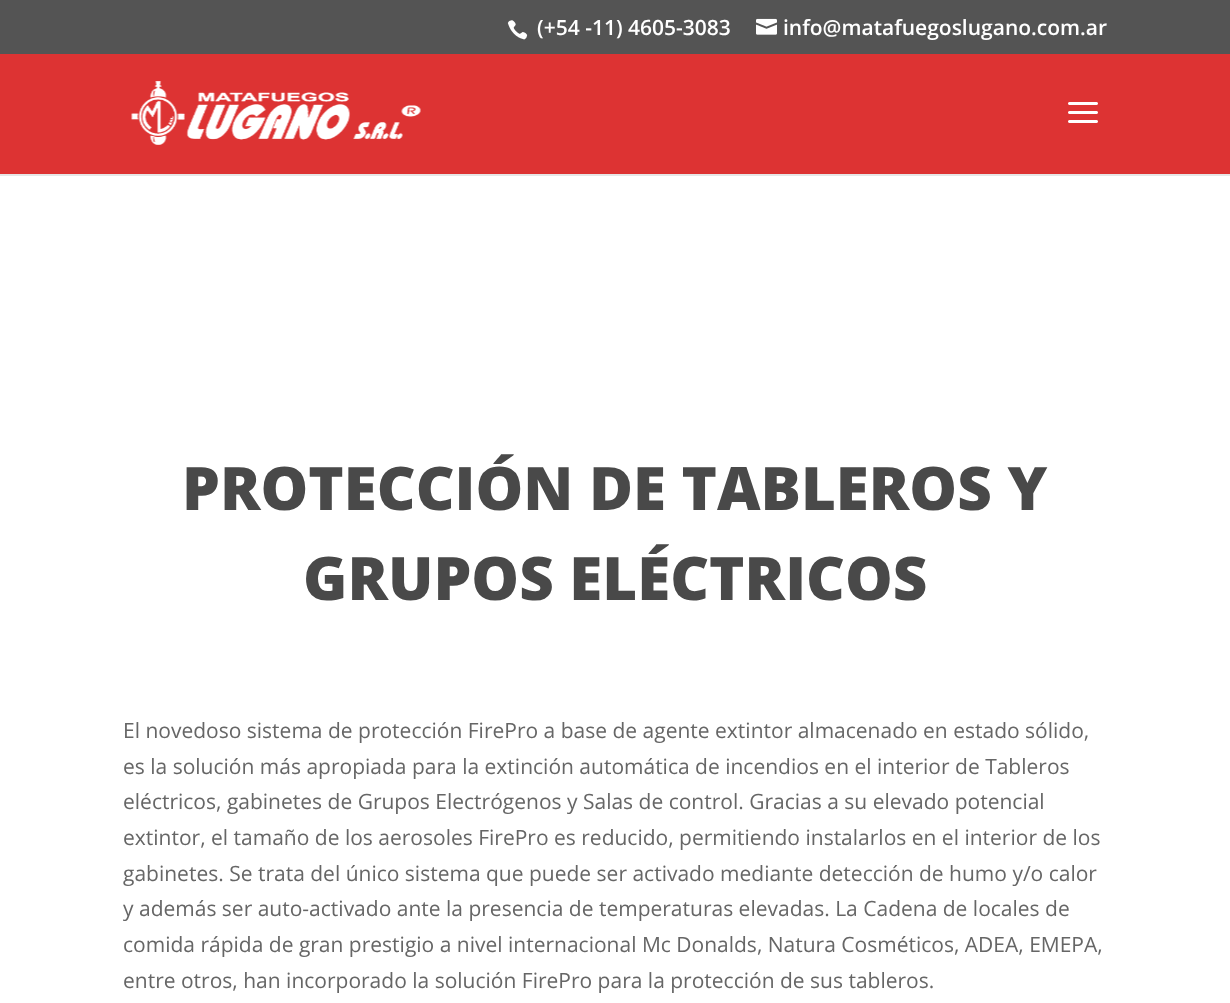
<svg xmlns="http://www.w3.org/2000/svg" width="1230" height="1003">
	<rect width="100%" height="100%" fill="#FFFFFF" />
	<rect x="0" y="0" width="1230" height="54" fill="#545454" />
	<image x="507" y="20" width="21" height="20" href="assets/img1.png" />
	<text x="537" y="35" font-family="Open Sans" font-size="21" font-weight="600" fill="#FFFFFF">(+54 -11) 4605-3083</text>
	<image x="756" y="18" width="21" height="17" href="assets/img2.png" />
	<text x="783" y="35" font-family="Open Sans" font-size="21" font-weight="600" fill="#FFFFFF">info@matafuegoslugano.com.ar</text>
	<rect x="0" y="174" width="1230" height="2" fill="#E6E6E6" />
	<rect x="0" y="54" width="1230" height="120" fill="#DD3333" />
	<image x="131" y="81" width="290" height="64" href="assets/img3.png" />
	<image x="1068" y="102" width="30" height="21" href="assets/img4.png" />
	<g font-family="Open Sans" font-size="60" font-weight="800" fill="#494949">
		<text x="182" y="510">PROTECCIÓN DE TABLEROS Y</text>
		<text x="303" y="600">GRUPOS ELÉCTRICOS</text>
	</g>
	<g font-family="Open Sans" font-size="21" fill="#666666">
		<text x="123" y="738">El novedoso sistema de protección FirePro a base de agente extintor almacenado en estado sólido,</text>
		<text x="123" y="774">es la solución más apropiada para la extinción automática de incendios en el interior de Tableros</text>
		<text x="123" y="809">eléctricos, gabinetes de Grupos Electrógenos y Salas de control. Gracias a su elevado potencial</text>
		<text x="123" y="845">extintor, el tamaño de los aerosoles FirePro es reducido, permitiendo instalarlos en el interior de los</text>
		<text x="123" y="881">gabinetes. Se trata del único sistema que puede ser activado mediante detección de humo y/o calor</text>
		<text x="123" y="916">y además ser auto-activado ante la presencia de temperaturas elevadas. La Cadena de locales de</text>
		<text x="123" y="952">comida rápida de gran prestigio a nivel internacional Mc Donalds, Natura Cosméticos, ADEA, EMEPA,</text>
		<text x="123" y="988">entre otros, han incorporado la solución FirePro para la protección de sus tableros.</text>
	</g>
</svg>
